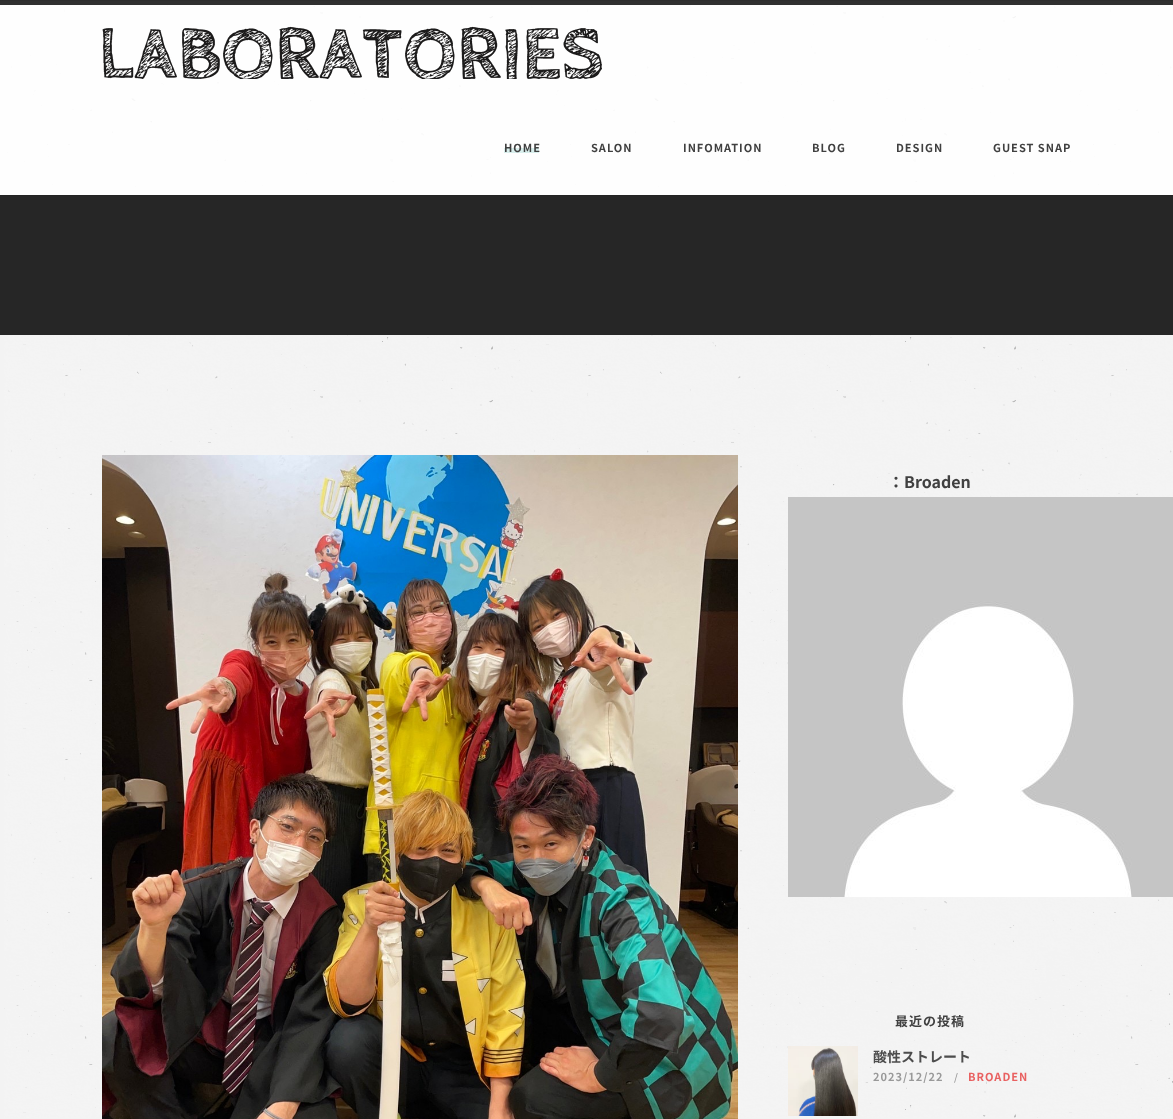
<svg xmlns="http://www.w3.org/2000/svg" width="1173" height="1119">
	<rect width="100%" height="100%" fill="#F3F3F3" />
	<image x="4" y="5" width="1169" height="1113" href="assets/img1.png" />
	<rect x="0" y="0" width="1173" height="1" fill="#2D2D2D" />
	<rect x="0" y="195" width="1173" height="1" fill="#232323" />
	<rect x="0" y="5" width="1173" height="190" fill="#FFFFFF" fill-opacity="0.85" />
	<rect x="0" y="1" width="1173" height="4" fill="#303030" />
	<image x="102" y="26" width="500" height="53" href="assets/img2.png" />
	<rect x="504" y="148" width="35" height="5" fill="#D8EEEC" />
	<g font-family="Noto Sans JP" font-size="11" font-weight="700" letter-spacing="1" fill="#404040">
		<text x="504" y="152">HOME</text>
		<text x="591" y="152">SALON</text>
		<text x="683" y="152">INFOMATION</text>
		<text x="812" y="152">BLOG</text>
		<text x="896" y="152">DESIGN</text>
		<text x="993" y="152">GUEST SNAP</text>
	</g>
	<rect x="0" y="196" width="1173" height="139" fill="#262626" />
	<image x="102" y="455" width="636" height="664" href="assets/img3.png" />
	<text x="888" y="488" font-family="Noto Sans JP" font-size="16" font-weight="700" fill="#404040">：Broaden</text>
	<image x="788" y="497" width="385" height="400" href="assets/img4.png" />
	<text x="895" y="1026" font-family="Noto Sans JP" font-size="13" font-weight="700" letter-spacing="1" fill="#404040">最近の投稿</text>
	<image x="788" y="1046" width="70" height="70" href="assets/img5.png" />
	<text x="873" y="1062" font-family="Noto Sans JP" font-size="14" font-weight="700" fill="#4D4D4D">酸性ストレート</text>
	<text x="873" y="1081" font-family="Noto Sans JP" font-size="11" font-weight="700" letter-spacing="1" fill="#999999">2023/12/22</text>
	<text x="954" y="1081" font-family="Noto Sans JP" font-size="10" font-weight="500" letter-spacing="1" fill="#999999">/</text>
	<text x="968" y="1081" font-family="Noto Sans JP" font-size="11" font-weight="700" letter-spacing="1" fill="#E96161">BROADEN</text>
</svg>
